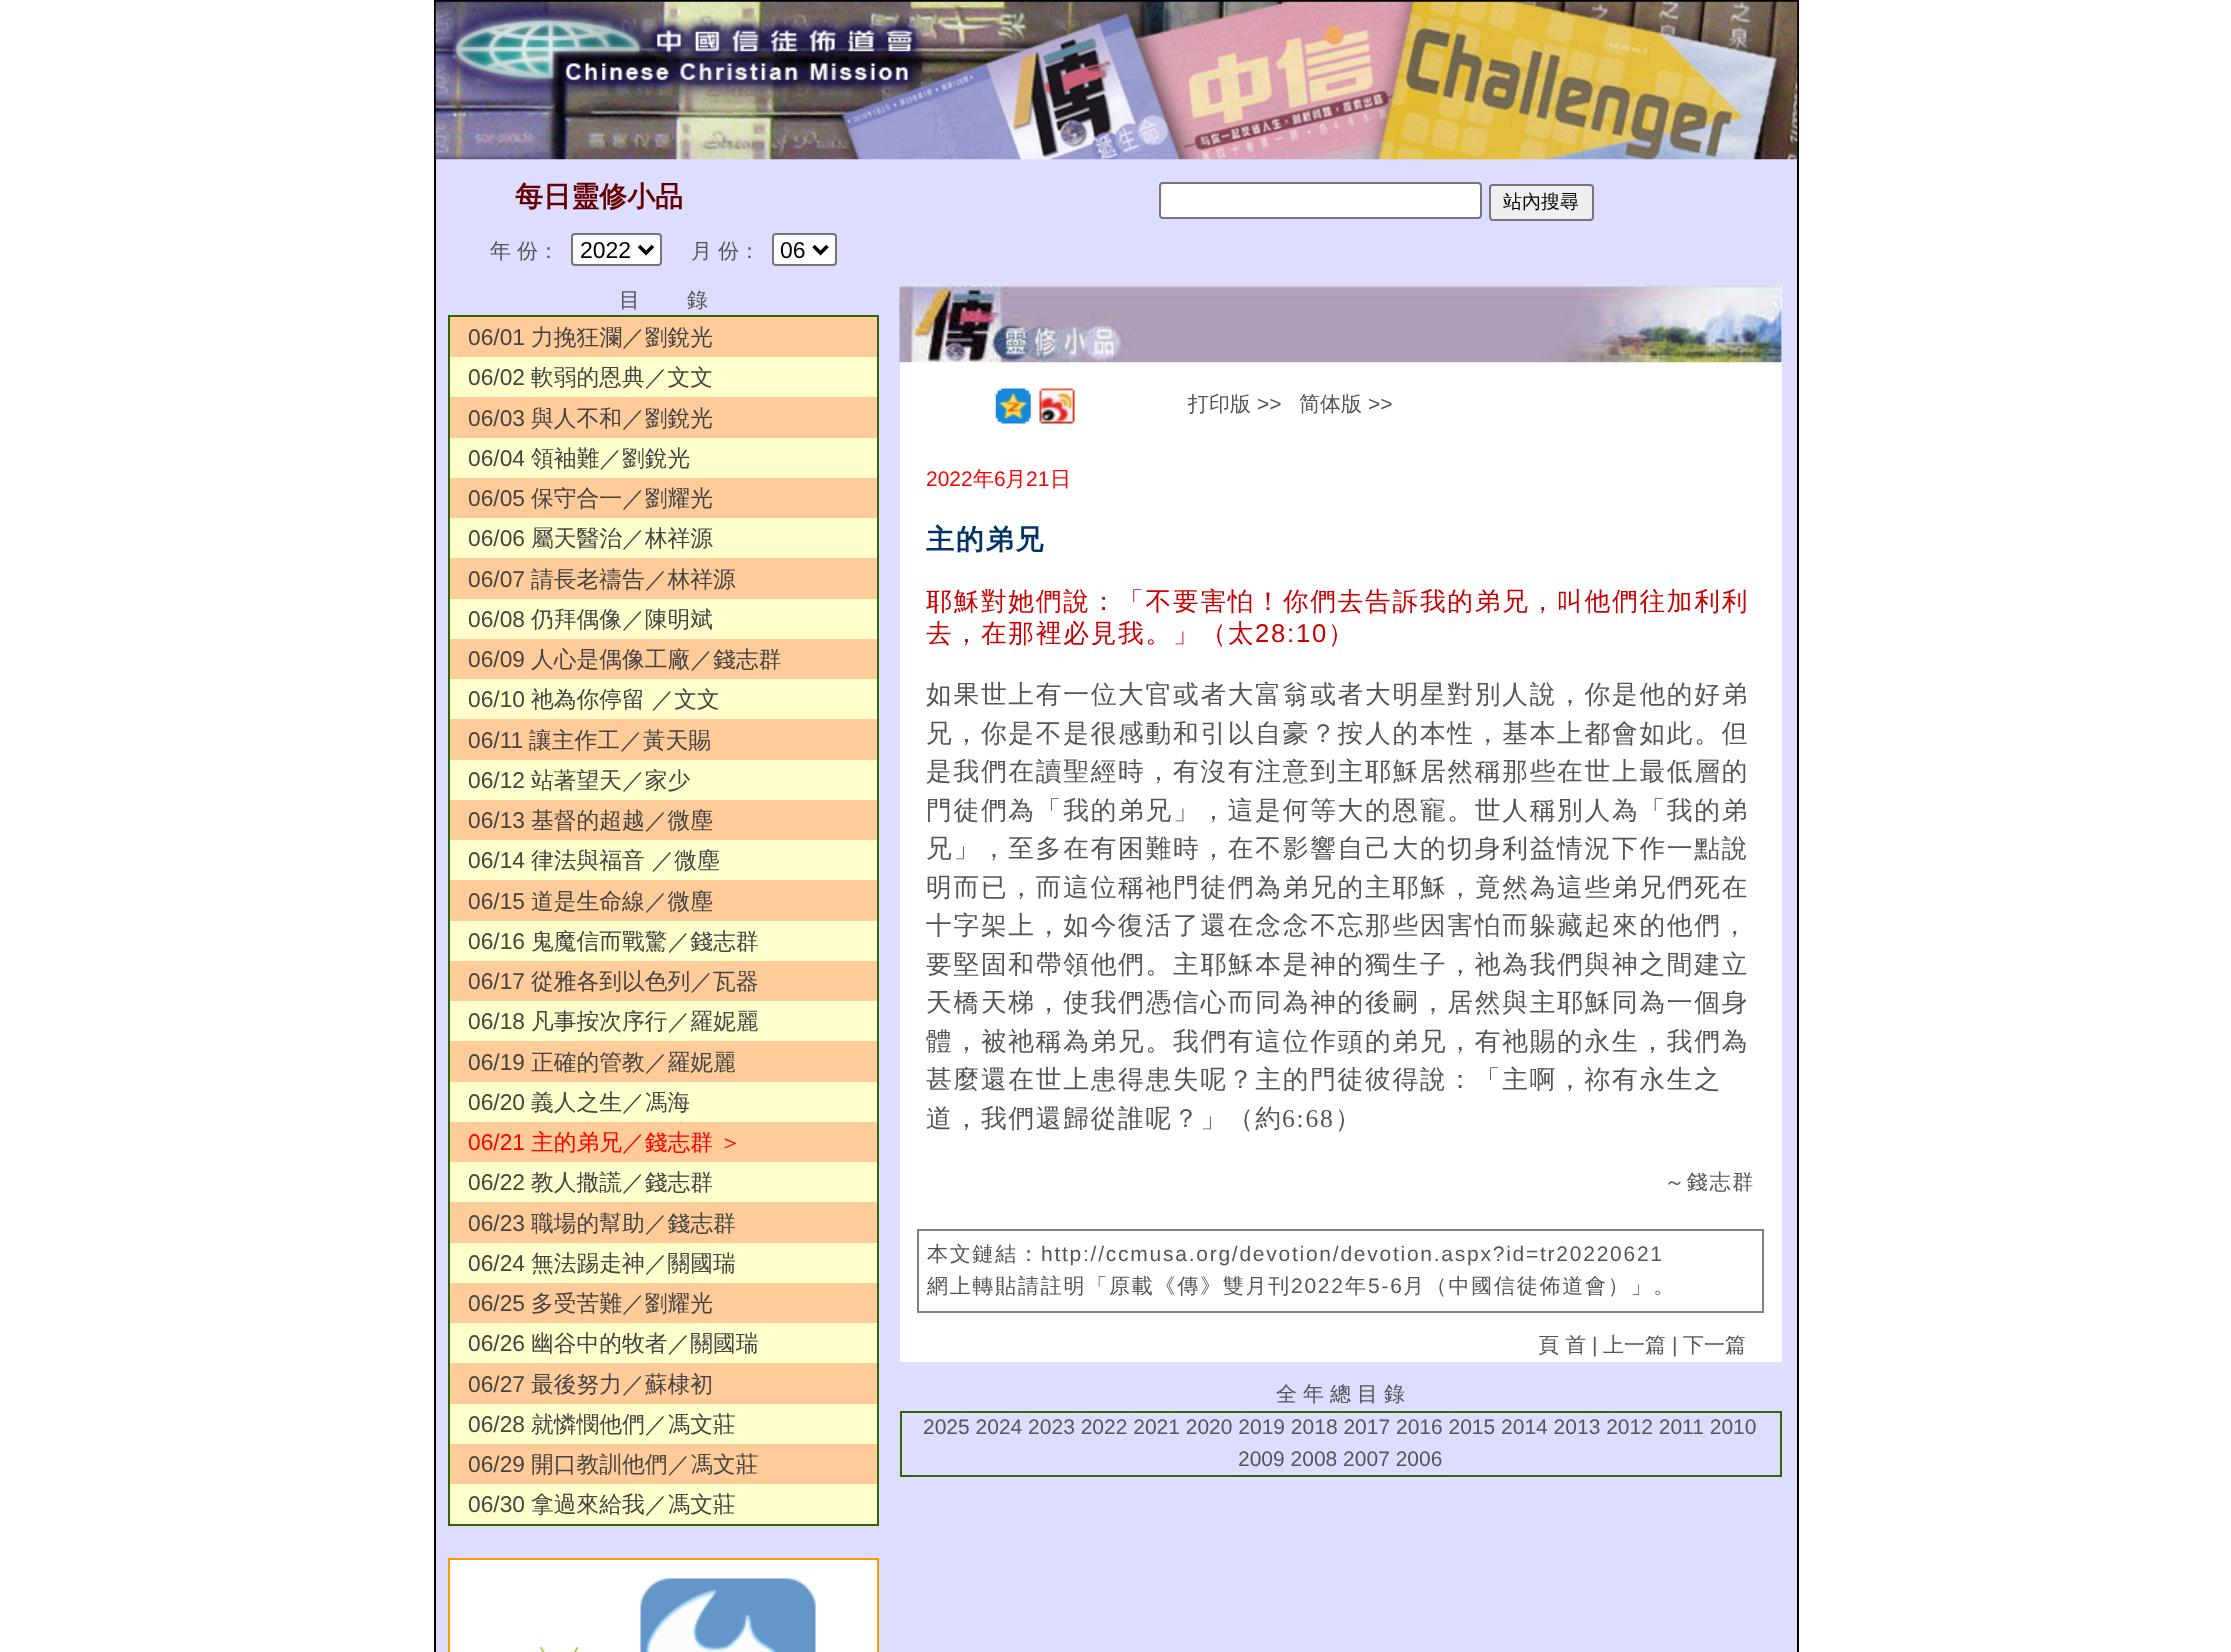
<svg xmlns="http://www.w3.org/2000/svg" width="2231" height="1652">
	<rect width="100%" height="100%" fill="#FFFFFF" />
	<rect x="436" y="159" width="1361" height="1493" fill="#DDDDFF" />
	<rect x="435" y="1" width="1363" height="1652" fill="none" stroke="#000000" stroke-width="2" />
	<image x="435" y="1" width="1363" height="159" href="assets/img1.png" />
	<text x="515" y="206" font-family="WenQuanYi Zen Hei" font-size="28" font-weight="700" fill="#660000">每日靈修小品</text>
	<rect x="1160" y="183" width="321" height="35" rx="3" fill="#FFFFFF" stroke="#767676" stroke-width="2" />
	<rect x="1490" y="185" width="103" height="35" rx="3" fill="#EFEFEF" stroke="#767676" stroke-width="2" />
	<text x="1503" y="208" font-family="WenQuanYi Zen Hei" font-size="19" font-weight="500" fill="#000000">站內搜尋</text>
	<g font-family="WenQuanYi Zen Hei" font-size="21" font-weight="500" fill="#555555">
		<text x="490" y="258">年</text>
		<text x="517" y="258">份：</text>
	</g>
	<rect x="572" y="234" width="89" height="31" rx="3" fill="#FFFFFF" stroke="#767676" stroke-width="2" />
	<path d="M639 246L646 253L653 246" fill="none" stroke="#000000" stroke-width="3.5" />
	<text x="580" y="258" font-family="Liberation Sans" font-size="23" fill="#000000">2022</text>
	<g font-family="WenQuanYi Zen Hei" font-size="21" font-weight="500" fill="#555555">
		<text x="691" y="258">月</text>
		<text x="718" y="258">份：</text>
	</g>
	<rect x="773" y="234" width="63" height="31" rx="3" fill="#FFFFFF" stroke="#767676" stroke-width="2" />
	<path d="M813.5 246L820.5 253L827.5 246" fill="none" stroke="#000000" stroke-width="3.5" />
	<text x="780" y="258" font-family="Liberation Sans" font-size="23" fill="#000000">06</text>
	<g font-family="WenQuanYi Zen Hei" font-size="21" font-weight="500" fill="#555555">
		<text x="619" y="307">目</text>
		<text x="687" y="307">錄</text>
	</g>
	<rect x="450" y="317" width="427" height="1167" fill="#FFCC99" />
	<rect x="449" y="316" width="429" height="1209" fill="none" stroke="#336600" stroke-width="2" />
	<text x="468" y="345" font-family="Liberation Sans" font-size="22.75" fill="#444444">06/01</text>
	<text x="531" y="345" font-family="WenQuanYi Zen Hei" font-size="22.75" font-weight="500" fill="#444444">力挽狂瀾／劉銳光</text>
	<rect x="450" y="357" width="427" height="40" fill="#FFFFCC" />
	<text x="468" y="385" font-family="Liberation Sans" font-size="22.75" fill="#444444">06/02</text>
	<text x="531" y="385" font-family="WenQuanYi Zen Hei" font-size="22.75" font-weight="500" fill="#444444">軟弱的恩典／文文</text>
	<text x="468" y="426" font-family="Liberation Sans" font-size="22.75" fill="#444444">06/03</text>
	<text x="531" y="426" font-family="WenQuanYi Zen Hei" font-size="22.75" font-weight="500" fill="#444444">與人不和／劉銳光</text>
	<rect x="450" y="438" width="427" height="40" fill="#FFFFCC" />
	<text x="468" y="466" font-family="Liberation Sans" font-size="22.75" fill="#444444">06/04</text>
	<text x="531" y="466" font-family="WenQuanYi Zen Hei" font-size="22.75" font-weight="500" fill="#444444">領袖難／劉銳光</text>
	<text x="468" y="506" font-family="Liberation Sans" font-size="22.75" fill="#444444">06/05</text>
	<text x="531" y="506" font-family="WenQuanYi Zen Hei" font-size="22.75" font-weight="500" fill="#444444">保守合一／劉耀光</text>
	<rect x="450" y="518" width="427" height="40" fill="#FFFFCC" />
	<text x="468" y="546" font-family="Liberation Sans" font-size="22.75" fill="#444444">06/06</text>
	<text x="531" y="546" font-family="WenQuanYi Zen Hei" font-size="22.75" font-weight="500" fill="#444444">屬天醫治／林祥源</text>
	<text x="468" y="587" font-family="Liberation Sans" font-size="22.75" fill="#444444">06/07</text>
	<text x="531" y="587" font-family="WenQuanYi Zen Hei" font-size="22.75" font-weight="500" fill="#444444">請長老禱告／林祥源</text>
	<rect x="450" y="599" width="427" height="40" fill="#FFFFCC" />
	<text x="468" y="627" font-family="Liberation Sans" font-size="22.75" fill="#444444">06/08</text>
	<text x="531" y="627" font-family="WenQuanYi Zen Hei" font-size="22.75" font-weight="500" fill="#444444">仍拜偶像／陳明斌</text>
	<text x="468" y="667" font-family="Liberation Sans" font-size="22.75" fill="#444444">06/09</text>
	<text x="531" y="667" font-family="WenQuanYi Zen Hei" font-size="22.75" font-weight="500" fill="#444444">人心是偶像工廠／錢志群</text>
	<rect x="450" y="679" width="427" height="40" fill="#FFFFCC" />
	<text x="468" y="707" font-family="Liberation Sans" font-size="22.75" fill="#444444">06/10</text>
	<text x="531" y="707" font-family="WenQuanYi Zen Hei" font-size="22.75" font-weight="500" fill="#444444">祂為你停留 ／文文</text>
	<text x="468" y="748" font-family="Liberation Sans" font-size="22.75" fill="#444444">06/11</text>
	<text x="529" y="748" font-family="WenQuanYi Zen Hei" font-size="22.75" font-weight="500" fill="#444444">讓主作工／黃天賜</text>
	<rect x="450" y="760" width="427" height="40" fill="#FFFFCC" />
	<text x="468" y="788" font-family="Liberation Sans" font-size="22.75" fill="#444444">06/12</text>
	<text x="531" y="788" font-family="WenQuanYi Zen Hei" font-size="22.75" font-weight="500" fill="#444444">站著望天／家少</text>
	<text x="468" y="828" font-family="Liberation Sans" font-size="22.75" fill="#444444">06/13</text>
	<text x="531" y="828" font-family="WenQuanYi Zen Hei" font-size="22.75" font-weight="500" fill="#444444">基督的超越／微塵</text>
	<rect x="450" y="840" width="427" height="40" fill="#FFFFCC" />
	<text x="468" y="868" font-family="Liberation Sans" font-size="22.75" fill="#444444">06/14</text>
	<text x="531" y="868" font-family="WenQuanYi Zen Hei" font-size="22.75" font-weight="500" fill="#444444">律法與福音 ／微塵</text>
	<text x="468" y="909" font-family="Liberation Sans" font-size="22.75" fill="#444444">06/15</text>
	<text x="531" y="909" font-family="WenQuanYi Zen Hei" font-size="22.75" font-weight="500" fill="#444444">道是生命線／微塵</text>
	<rect x="450" y="921" width="427" height="40" fill="#FFFFCC" />
	<text x="468" y="949" font-family="Liberation Sans" font-size="22.75" fill="#444444">06/16</text>
	<text x="531" y="949" font-family="WenQuanYi Zen Hei" font-size="22.75" font-weight="500" fill="#444444">鬼魔信而戰驚／錢志群</text>
	<text x="468" y="989" font-family="Liberation Sans" font-size="22.75" fill="#444444">06/17</text>
	<text x="531" y="989" font-family="WenQuanYi Zen Hei" font-size="22.75" font-weight="500" fill="#444444">從雅各到以色列／瓦器</text>
	<rect x="450" y="1001" width="427" height="40" fill="#FFFFCC" />
	<text x="468" y="1029" font-family="Liberation Sans" font-size="22.75" fill="#444444">06/18</text>
	<text x="531" y="1029" font-family="WenQuanYi Zen Hei" font-size="22.75" font-weight="500" fill="#444444">凡事按次序行／羅妮麗</text>
	<text x="468" y="1070" font-family="Liberation Sans" font-size="22.75" fill="#444444">06/19</text>
	<text x="531" y="1070" font-family="WenQuanYi Zen Hei" font-size="22.75" font-weight="500" fill="#444444">正確的管教／羅妮麗</text>
	<rect x="450" y="1082" width="427" height="40" fill="#FFFFCC" />
	<text x="468" y="1110" font-family="Liberation Sans" font-size="22.75" fill="#444444">06/20</text>
	<text x="531" y="1110" font-family="WenQuanYi Zen Hei" font-size="22.75" font-weight="500" fill="#444444">義人之生／馮海</text>
	<text x="468" y="1150" font-family="Liberation Sans" font-size="22.75" fill="#FF0000">06/21</text>
	<g font-family="WenQuanYi Zen Hei" font-size="22.75" font-weight="500" fill="#FF0000">
		<text x="531" y="1150">主的弟兄／錢志群</text>
		<text x="719" y="1150">＞</text>
	</g>
	<rect x="450" y="1162" width="427" height="40" fill="#FFFFCC" />
	<text x="468" y="1190" font-family="Liberation Sans" font-size="22.75" fill="#444444">06/22</text>
	<text x="531" y="1190" font-family="WenQuanYi Zen Hei" font-size="22.75" font-weight="500" fill="#444444">教人撒謊／錢志群</text>
	<text x="468" y="1231" font-family="Liberation Sans" font-size="22.75" fill="#444444">06/23</text>
	<text x="531" y="1231" font-family="WenQuanYi Zen Hei" font-size="22.75" font-weight="500" fill="#444444">職場的幫助／錢志群</text>
	<rect x="450" y="1243" width="427" height="40" fill="#FFFFCC" />
	<text x="468" y="1271" font-family="Liberation Sans" font-size="22.75" fill="#444444">06/24</text>
	<text x="531" y="1271" font-family="WenQuanYi Zen Hei" font-size="22.75" font-weight="500" fill="#444444">無法踢走神／關國瑞</text>
	<text x="468" y="1311" font-family="Liberation Sans" font-size="22.75" fill="#444444">06/25</text>
	<text x="531" y="1311" font-family="WenQuanYi Zen Hei" font-size="22.75" font-weight="500" fill="#444444">多受苦難／劉耀光</text>
	<rect x="450" y="1323" width="427" height="40" fill="#FFFFCC" />
	<text x="468" y="1351" font-family="Liberation Sans" font-size="22.75" fill="#444444">06/26</text>
	<text x="531" y="1351" font-family="WenQuanYi Zen Hei" font-size="22.75" font-weight="500" fill="#444444">幽谷中的牧者／關國瑞</text>
	<text x="468" y="1392" font-family="Liberation Sans" font-size="22.75" fill="#444444">06/27</text>
	<text x="531" y="1392" font-family="WenQuanYi Zen Hei" font-size="22.75" font-weight="500" fill="#444444">最後努力／蘇棣初</text>
	<rect x="450" y="1404" width="427" height="40" fill="#FFFFCC" />
	<text x="468" y="1432" font-family="Liberation Sans" font-size="22.75" fill="#444444">06/28</text>
	<text x="531" y="1432" font-family="WenQuanYi Zen Hei" font-size="22.75" font-weight="500" fill="#444444">就憐憫他們／馮文莊</text>
	<text x="468" y="1472" font-family="Liberation Sans" font-size="22.75" fill="#444444">06/29</text>
	<text x="531" y="1472" font-family="WenQuanYi Zen Hei" font-size="22.75" font-weight="500" fill="#444444">開口教訓他們／馮文莊</text>
	<rect x="450" y="1484" width="427" height="40" fill="#FFFFCC" />
	<text x="468" y="1512" font-family="Liberation Sans" font-size="22.75" fill="#444444">06/30</text>
	<text x="531" y="1512" font-family="WenQuanYi Zen Hei" font-size="22.75" font-weight="500" fill="#444444">拿過來給我／馮文莊</text>
	<rect x="449" y="1559" width="429" height="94" fill="#FFFFFF" stroke="#FF9900" stroke-width="2" />
	<image x="537" y="1646" width="46" height="6" href="assets/img2.png" />
	<image x="640" y="1578" width="176" height="74" href="assets/img3.png" />
	<rect x="900" y="285" width="882" height="1077" fill="#FFFFFF" />
	<image x="899" y="285" width="883" height="78" href="assets/img4.png" />
	<image x="995" y="388" width="36" height="36" href="assets/img5.png" />
	<image x="1039" y="388" width="36" height="36" href="assets/img6.png" />
	<text x="1188" y="411" font-family="WenQuanYi Zen Hei" font-size="21" font-weight="500" fill="#555555">打印版</text>
	<text x="1257" y="411" font-family="Liberation Sans" font-size="21" fill="#555555">&gt;&gt;</text>
	<text x="1299" y="411" font-family="WenQuanYi Zen Hei" font-size="21" font-weight="500" fill="#555555">简体版</text>
	<text x="1368" y="411" font-family="Liberation Sans" font-size="21" fill="#555555">&gt;&gt;</text>
	<text x="926" y="486" font-family="Liberation Sans" font-size="21" fill="#FF0000">2022</text>
	<text x="973" y="486" font-family="WenQuanYi Zen Hei" font-size="21" font-weight="500" fill="#FF0000">年</text>
	<text x="994" y="486" font-family="Liberation Sans" font-size="21" fill="#FF0000">6</text>
	<text x="1005" y="486" font-family="WenQuanYi Zen Hei" font-size="21" font-weight="500" fill="#FF0000">月</text>
	<text x="1026" y="486" font-family="Liberation Sans" font-size="21" fill="#FF0000">21</text>
	<text x="1050" y="486" font-family="WenQuanYi Zen Hei" font-size="21" font-weight="500" fill="#FF0000">日</text>
	<text x="926" y="549" font-family="WenQuanYi Zen Hei" font-size="28" font-weight="700" letter-spacing="1.75" fill="#003366">主的弟兄</text>
	<g font-family="WenQuanYi Zen Hei" font-size="25.7" font-weight="500" letter-spacing="1.75" fill="#CC0000">
		<text x="926" y="610">耶穌對她們說：「不要害怕！你們去告訴我的弟兄，叫他們往加利利</text>
		<text x="926" y="642">去，在那裡必見我。」（太</text>
	</g>
	<text x="1255" y="642" font-family="Liberation Sans" font-size="25.7" letter-spacing="1.75" fill="#CC0000">28:10</text>
	<text x="1328" y="642" font-family="WenQuanYi Zen Hei" font-size="25.7" font-weight="500" letter-spacing="1.75" fill="#CC0000">）</text>
	<g font-family="WenQuanYi Zen Hei" font-size="25.7" font-weight="500" letter-spacing="1.75" fill="#555555">
		<text x="926" y="703">如果世上有一位大官或者大富翁或者大明星對別人說，你是他的好弟</text>
		<text x="926" y="742">兄，你是不是很感動和引以自豪？按人的本性，基本上都會如此。但</text>
		<text x="926" y="780">是我們在讀聖經時，有沒有注意到主耶穌居然稱那些在世上最低層的</text>
		<text x="926" y="819">門徒們為「我的弟兄」，這是何等大的恩寵。世人稱別人為「我的弟</text>
		<text x="926" y="857">兄」，至多在有困難時，在不影響自己大的切身利益情況下作一點說</text>
		<text x="926" y="896">明而已，而這位稱祂門徒們為弟兄的主耶穌，竟然為這些弟兄們死在</text>
		<text x="926" y="934">十字架上，如今復活了還在念念不忘那些因害怕而躲藏起來的他們，</text>
		<text x="926" y="973">要堅固和帶領他們。主耶穌本是神的獨生子，祂為我們與神之間建立</text>
		<text x="926" y="1011">天橋天梯，使我們憑信心而同為神的後嗣，居然與主耶穌同為一個身</text>
		<text x="926" y="1050">體，被祂稱為弟兄。我們有這位作頭的弟兄，有祂賜的永生，我們為</text>
		<text x="926" y="1088">甚麼還在世上患得患失呢？主的門徒彼得說：「主啊，祢有永生之</text>
		<text x="926" y="1127">道，我們還歸從誰呢？」（約</text>
	</g>
	<text x="1282" y="1127" font-family="Liberation Serif" font-size="25.7" letter-spacing="1.75" fill="#555555">6:68</text>
	<text x="1335" y="1127" font-family="WenQuanYi Zen Hei" font-size="25.7" font-weight="500" letter-spacing="1.75" fill="#555555">）</text>
	<text x="1664" y="1189" font-family="WenQuanYi Zen Hei" font-size="21" font-weight="500" letter-spacing="1.75" fill="#555555">～錢志群</text>
	<rect x="918" y="1230" width="845" height="82" fill="none" stroke="#808080" stroke-width="2" />
	<text x="927" y="1261" font-family="WenQuanYi Zen Hei" font-size="21" font-weight="500" letter-spacing="1.75" fill="#555555">本文鏈結：</text>
	<text x="1041" y="1261" font-family="Liberation Sans" font-size="21" letter-spacing="1.75" fill="#555555">http://ccmusa.org/devotion/devotion.aspx?id=tr20220621</text>
	<text x="927" y="1293" font-family="WenQuanYi Zen Hei" font-size="21" font-weight="500" letter-spacing="1.75" fill="#555555">網上轉貼請註明「原載《傳》雙月刊</text>
	<text x="1291" y="1293" font-family="Liberation Sans" font-size="21" letter-spacing="1.75" fill="#555555">2022</text>
	<text x="1345" y="1293" font-family="WenQuanYi Zen Hei" font-size="21" font-weight="500" letter-spacing="1.75" fill="#555555">年</text>
	<text x="1368" y="1293" font-family="Liberation Sans" font-size="21" letter-spacing="1.75" fill="#555555">5-6</text>
	<text x="1403" y="1293" font-family="WenQuanYi Zen Hei" font-size="21" font-weight="500" letter-spacing="1.75" fill="#555555">月（中國信徒佈道會）」。</text>
	<text x="1538" y="1352" font-family="WenQuanYi Zen Hei" font-size="21" font-weight="500" fill="#555555">頁 首</text>
	<text x="1592" y="1352" font-family="Liberation Sans" font-size="21" fill="#555555">|</text>
	<text x="1603" y="1352" font-family="WenQuanYi Zen Hei" font-size="21" font-weight="500" fill="#555555">上一篇</text>
	<text x="1672" y="1352" font-family="Liberation Sans" font-size="21" fill="#555555">|</text>
	<g font-family="WenQuanYi Zen Hei" font-size="21" font-weight="500" fill="#555555">
		<text x="1683" y="1352">下一篇</text>
		<text x="1276" y="1401">全</text>
		<text x="1303" y="1401">年</text>
		<text x="1330" y="1401">總</text>
		<text x="1357" y="1401">目</text>
		<text x="1384" y="1401">錄</text>
	</g>
	<rect x="901" y="1412" width="880" height="64" fill="none" stroke="#336600" stroke-width="2" />
	<g font-family="Liberation Sans" font-size="21" fill="#555555">
		<text x="923" y="1434">2025 2024 2023 2022 2021 2020 2019 2018 2017 2016 2015 2014 2013 2012 2011 2010</text>
		<text x="1238" y="1466">2009 2008 2007 2006</text>
	</g>
</svg>
